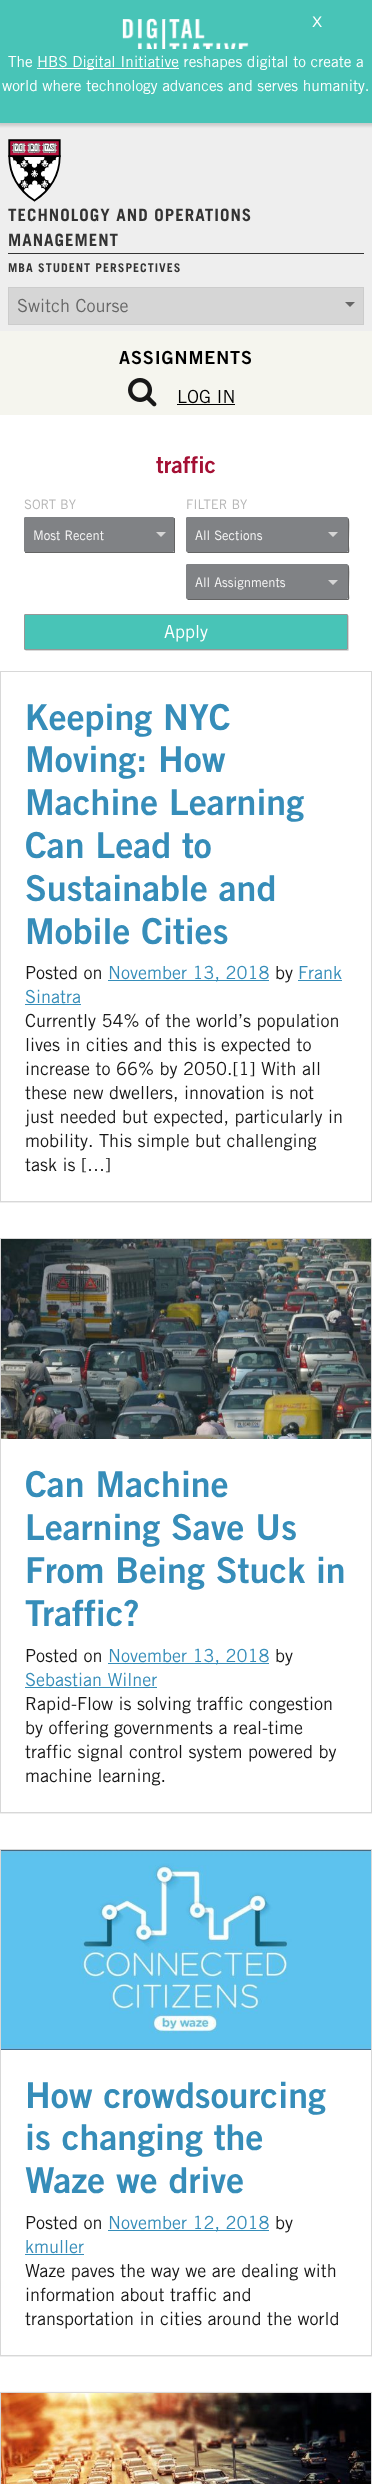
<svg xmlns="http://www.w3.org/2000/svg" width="372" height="2484">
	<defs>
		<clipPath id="clip1"><rect x="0" y="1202" width="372" height="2" /></clipPath>
		<clipPath id="clip2"><rect x="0" y="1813" width="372" height="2" /></clipPath>
		<clipPath id="clip3"><rect x="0" y="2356" width="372" height="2" /></clipPath>
	</defs>
	<rect width="100%" height="100%" fill="#FFFFFF" />
	<rect x="0" y="123" width="372" height="208" fill="#EEEEEE" />
	<rect x="-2" y="-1" width="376" height="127" fill="#000000" fill-opacity="0.15" filter="blur(1.5px)" />
	<rect x="0" y="0" width="372" height="123" fill="#48C4B7" />
	<image x="122" y="18" width="127" height="31" href="assets/img1.png" />
	<text x="312" y="27" font-family="Liberation Sans" font-size="15.3" fill="#FFFFFF">X</text>
	<text x="8" y="67" font-family="Trade Gothic" font-size="15.3" fill="#FFFFFF">The</text>
	<rect x="37" y="68" width="142" height="1" fill="#FFFFFF" />
	<g font-family="Trade Gothic" font-size="15.3" fill="#FFFFFF">
		<text x="37" y="67">HBS Digital Initiative reshapes digital to create a</text>
		<text x="2" y="91">world where technology advances and serves humanity.</text>
	</g>
	<rect x="0" y="331" width="372" height="84" fill="#F5F5EE" />
	<image x="8" y="139" width="53" height="63" href="assets/img2.png" />
	<rect x="8" y="253" width="356" height="1" fill="#333333" />
	<g font-family="'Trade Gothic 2'" font-size="17" font-weight="700" letter-spacing="1" fill="#333333">
		<text x="8" y="221">TECHNOLOGY AND OPERATIONS</text>
		<text x="8" y="246">MANAGEMENT</text>
	</g>
	<text x="8" y="272" font-family="'Trade Gothic 2'" font-size="12" font-weight="700" letter-spacing="1" fill="#333333">MBA STUDENT PERSPECTIVES</text>
	<rect x="8.5" y="287.5" width="355" height="37" fill="#D6D6D6" stroke="#CCCCCC" />
	<text x="17" y="312" font-family="Trade Gothic" font-size="18" fill="#666666">Switch Course</text>
	<path d="M345 302H355L350 307Z" fill="#666666" />
	<text x="119" y="364" font-family="Trade Gothic" font-size="18" font-weight="700" letter-spacing="0.9" fill="#000000">ASSIGNMENTS</text>
	<image x="128" y="378" width="29" height="29" href="assets/img3.png" />
	<text x="177" y="403" font-family="Trade Gothic" font-size="18" fill="#000000">LOG IN</text>
	<rect x="177" y="404" width="58" height="1" fill="#000000" />
	<text x="156" y="473" font-family="Trade Gothic" font-size="23" font-weight="700" fill="#A41034">traffic</text>
	<text x="24" y="509" font-family="Trade Gothic" font-size="13" fill="#B6B6B6">SORT BY</text>
	<path d="M25 552C25 553 25 553 26 553H174C175 553 175 553 175 552V519C175 518 175 518 174 518V551C174 552 174 552 173 552Z" fill="#646464" />
	<rect x="24.5" y="517.5" width="149" height="34" rx="0.5" fill="#808285" stroke="#808285" />
	<text x="33" y="540" font-family="Trade Gothic" font-size="13" fill="#F8F8F8">Most Recent</text>
	<path d="M156 532H166L161 537Z" fill="#D6D6D6" />
	<text x="186" y="509" font-family="Trade Gothic" font-size="13" fill="#B6B6B6">FILTER BY</text>
	<path d="M187 552L188 553H348C350 553 349 549 349 546C349 526 350 518 348 518V551C348 552 348 552 347 552Z" fill="#646464" />
	<rect x="186.5" y="517.5" width="161" height="34" rx="0.5" fill="#808285" stroke="#808285" />
	<text x="195" y="540" font-family="Trade Gothic" font-size="13" fill="#F8F8F8">All Sections</text>
	<path d="M187 599L188 600H348C350 600 349 596 349 594C349 573 350 565 348 565V598C348 599 348 599 347 599Z" fill="#646464" />
	<rect x="186.5" y="564.5" width="161" height="34" rx="0.5" fill="#808285" stroke="#808285" />
	<path d="M328 532H338L333 537ZM328 580H338L333 585Z" fill="#D6D6D6" />
	<text x="195" y="587" font-family="Trade Gothic" font-size="13" fill="#F8F8F8">All Assignments</text>
	<path d="M25 650L26 651H348L349 650V616L348 615V649C348 650 348 650 347 650Z" fill="#D8D8D8" />
	<rect x="24.5" y="614.5" width="323" height="35" rx="0.5" fill="#48C4B7" stroke="#979797" />
	<text x="164" y="638" font-family="Trade Gothic" font-size="18" fill="#FFFFFF">Apply</text>
	<g clip-path="url(#clip1)">
		<rect x="0" y="672" width="372" height="531" fill="#EEEEEE" filter="blur(0.5px)" />
	</g>
	<rect x="0.5" y="671.5" width="371" height="530" fill="none" stroke="#D8D8D8" />
	<g font-family="Trade Gothic" font-size="35.75" font-weight="700" fill="#368DB9">
		<text x="25" y="730">Keeping NYC</text>
		<text x="25" y="772">Moving: How</text>
		<text x="25" y="815">Machine Learning</text>
		<text x="25" y="858">Can Lead to</text>
		<text x="25" y="901">Sustainable and</text>
		<text x="25" y="944">Mobile Cities</text>
	</g>
	<text x="25" y="979" font-family="Trade Gothic" font-size="18" fill="#181818">Posted on</text>
	<rect x="108" y="980" width="161" height="1" fill="#368DB9" />
	<text x="108" y="979" font-family="Trade Gothic" font-size="18" fill="#368DB9">November 13, 2018</text>
	<text x="275" y="979" font-family="Trade Gothic" font-size="18" fill="#181818">by</text>
	<text x="298" y="979" font-family="Trade Gothic" font-size="18" fill="#368DB9">Frank</text>
	<rect x="298" y="980" width="44" height="1" fill="#368DB9" />
	<text x="25" y="1003" font-family="Trade Gothic" font-size="18" fill="#368DB9">Sinatra</text>
	<rect x="25" y="1004" width="56" height="1" fill="#368DB9" />
	<g font-family="Trade Gothic" font-size="18" fill="#181818">
		<text x="25" y="1027">Currently 54% of the world’s population</text>
		<text x="25" y="1051">lives in cities and this is expected to</text>
		<text x="25" y="1075">increase to 66% by 2050.[1] With all</text>
		<text x="25" y="1099">these new dwellers, innovation is not</text>
		<text x="25" y="1123">just needed but expected, particularly in</text>
		<text x="25" y="1147">mobility. This simple but challenging</text>
		<text x="25" y="1171">task is […]</text>
	</g>
	<g clip-path="url(#clip2)">
		<rect x="0" y="1239" width="372" height="575" fill="#EEEEEE" filter="blur(0.5px)" />
	</g>
	<rect x="0.5" y="1238.5" width="371" height="574" fill="none" stroke="#D8D8D8" />
	<image x="1" y="1239" width="370" height="200" href="assets/img4.png" />
	<g font-family="Trade Gothic" font-size="35.75" font-weight="700" fill="#368DB9">
		<text x="25" y="1497">Can Machine</text>
		<text x="25" y="1540">Learning Save Us</text>
		<text x="25" y="1583">From Being Stuck in</text>
		<text x="25" y="1626">Traffic?</text>
	</g>
	<text x="25" y="1662" font-family="Trade Gothic" font-size="18" fill="#181818">Posted on</text>
	<rect x="108" y="1663" width="161" height="1" fill="#368DB9" />
	<text x="108" y="1662" font-family="Trade Gothic" font-size="18" fill="#368DB9">November 13, 2018</text>
	<text x="275" y="1662" font-family="Trade Gothic" font-size="18" fill="#181818">by</text>
	<text x="25" y="1686" font-family="Trade Gothic" font-size="18" fill="#368DB9">Sebastian Wilner</text>
	<rect x="25" y="1687" width="132" height="1" fill="#368DB9" />
	<g font-family="Trade Gothic" font-size="18" fill="#181818">
		<text x="25" y="1710">Rapid-Flow is solving traffic congestion</text>
		<text x="25" y="1734">by offering governments a real-time</text>
		<text x="25" y="1758">traffic signal control system powered by</text>
		<text x="25" y="1782">machine learning.</text>
	</g>
	<g clip-path="url(#clip3)">
		<rect x="0" y="1850" width="372" height="507" fill="#EEEEEE" filter="blur(0.5px)" />
	</g>
	<rect x="0.5" y="1849.5" width="371" height="506" fill="none" stroke="#D8D8D8" />
	<image x="1" y="1850" width="370" height="200" href="assets/img5.png" />
	<g font-family="Trade Gothic" font-size="35.75" font-weight="700" fill="#368DB9">
		<text x="25" y="2108">How crowdsourcing</text>
		<text x="25" y="2150">is changing the</text>
		<text x="25" y="2193">Waze we drive</text>
	</g>
	<text x="25" y="2229" font-family="Trade Gothic" font-size="18" fill="#181818">Posted on</text>
	<rect x="108" y="2230" width="161" height="1" fill="#368DB9" />
	<text x="108" y="2229" font-family="Trade Gothic" font-size="18" fill="#368DB9">November 12, 2018</text>
	<text x="275" y="2229" font-family="Trade Gothic" font-size="18" fill="#181818">by</text>
	<text x="25" y="2253" font-family="Trade Gothic" font-size="18" fill="#368DB9">kmuller</text>
	<rect x="25" y="2254" width="59" height="1" fill="#368DB9" />
	<g font-family="Trade Gothic" font-size="18" fill="#181818">
		<text x="25" y="2277">Waze paves the way we are dealing with</text>
		<text x="25" y="2301">information about traffic and</text>
		<text x="25" y="2325">transportation in cities around the world</text>
	</g>
	<rect x="-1" y="2392" width="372" height="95" fill="#EEEEEE" filter="blur(1px)" />
	<rect x="0.5" y="2392.5" width="371" height="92" fill="none" stroke="#D8D8D8" />
	<image x="1" y="2393" width="370" height="91" href="assets/img6.png" />
</svg>
